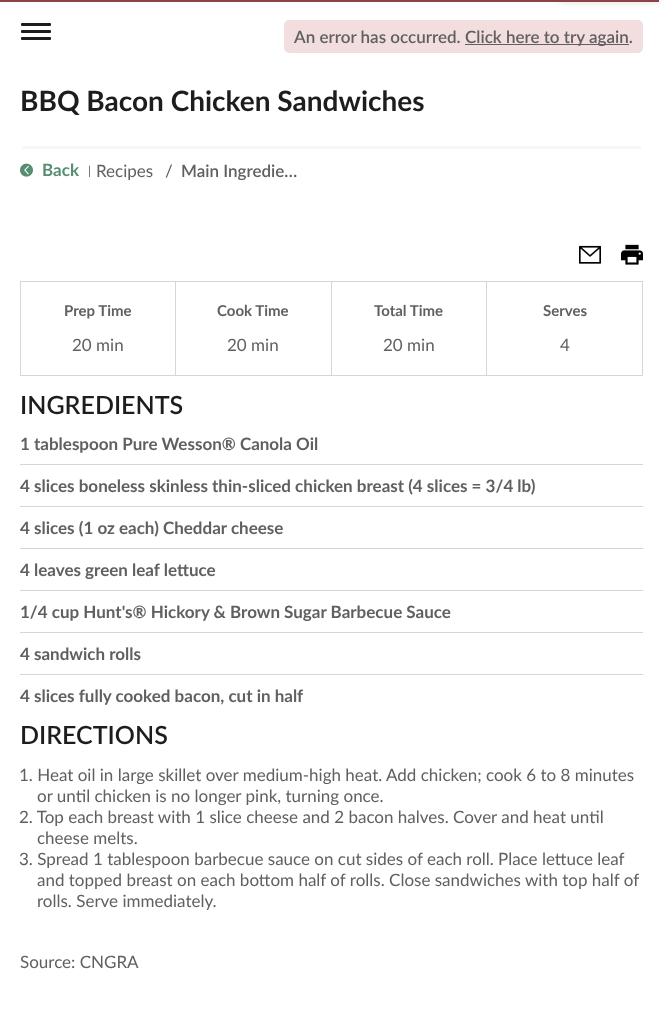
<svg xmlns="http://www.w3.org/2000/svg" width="663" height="1016">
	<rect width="100%" height="100%" fill="#FFFFFF" />
	<rect x="0" y="0" width="659" height="2" fill="#8C4546" />
	<rect x="559" y="-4" width="100" height="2" fill="#8C4546" filter="blur(5px)" />
	<rect x="284" y="20" width="359" height="33" rx="5" fill="#F2DEDE" />
	<text x="294" y="43" font-family="Lato" font-size="17" font-weight="600" fill="#606062">An error has occurred.</text>
	<rect x="465" y="44" width="164" height="1" fill="#606062" />
	<text x="465" y="43" font-family="Lato" font-size="17" font-weight="600" fill="#606062">Click here to try again.</text>
	<rect x="21" y="23" width="30" height="3" rx="1" fill="#1D1D1F" />
	<rect x="21" y="30" width="30" height="3" rx="1" fill="#1D1D1F" />
	<rect x="21" y="37" width="30" height="3" rx="1" fill="#1D1D1F" />
	<text x="20" y="111" font-family="Lato" font-size="28" font-weight="700" fill="#1D1D1F">BBQ Bacon Chicken Sandwiches</text>
	<rect x="22" y="146" width="619" height="3" fill="#F7F7F7" />
	<image x="20" y="163" width="13" height="14" href="assets/img1.png" />
	<text x="42" y="176" font-family="Lato" font-size="17" font-weight="700" fill="#588C73">Back</text>
	<text x="88" y="175" font-family="Lato" font-size="12" fill="#606062">|</text>
	<g font-family="Lato" font-size="17" fill="#606062">
		<text x="96" y="177">Recipes</text>
		<text x="165" y="177">/</text>
	</g>
	<text x="181" y="177" font-family="Lato" font-size="17" font-weight="600" fill="#606062">Main Ingredie…</text>
	<image x="579" y="245" width="22" height="19" href="assets/img2.png" />
	<image x="621" y="244" width="22" height="21" href="assets/img3.png" />
	<rect x="20.5" y="281.5" width="155" height="94" fill="none" stroke="#D6D6D6" />
	<text x="64" y="316" font-family="Lato" font-size="15" font-weight="700" fill="#606062">Prep Time</text>
	<text x="72" y="351" font-family="Lato" font-size="17" fill="#606062">20 min</text>
	<rect x="176" y="281" width="467" height="1" fill="#D6D6D6" />
	<rect x="331" y="281" width="1" height="95" fill="#D6D6D6" />
	<rect x="176" y="375" width="156" height="1" fill="#D6D6D6" />
	<text x="217" y="316" font-family="Lato" font-size="15" font-weight="700" fill="#606062">Cook Time</text>
	<text x="227" y="351" font-family="Lato" font-size="17" fill="#606062">20 min</text>
	<rect x="486" y="281" width="1" height="95" fill="#D6D6D6" />
	<rect x="332" y="375" width="155" height="1" fill="#D6D6D6" />
	<text x="374" y="316" font-family="Lato" font-size="15" font-weight="700" fill="#606062">Total Time</text>
	<text x="383" y="351" font-family="Lato" font-size="17" fill="#606062">20 min</text>
	<rect x="642" y="281" width="1" height="95" fill="#D6D6D6" />
	<rect x="487" y="375" width="156" height="1" fill="#D6D6D6" />
	<text x="543" y="316" font-family="Lato" font-size="15" font-weight="700" fill="#606062">Serves</text>
	<text x="560" y="351" font-family="Lato" font-size="17" fill="#606062">4</text>
	<text x="20" y="414" font-family="Lato" font-size="25" font-weight="600" fill="#1D1D1F">INGREDIENTS</text>
	<text x="20" y="450" font-family="Lato" font-size="17" font-weight="700" fill="#606062">1 tablespoon Pure Wesson® Canola Oil</text>
	<rect x="20" y="464" width="623" height="1" fill="#D6D6D6" />
	<text x="20" y="492" font-family="Lato" font-size="17" font-weight="700" fill="#606062">4 slices boneless skinless thin-sliced chicken breast (4 slices = 3/4 lb)</text>
	<rect x="20" y="506" width="623" height="1" fill="#D6D6D6" />
	<text x="20" y="534" font-family="Lato" font-size="17" font-weight="700" fill="#606062">4 slices (1 oz each) Cheddar cheese</text>
	<rect x="20" y="548" width="623" height="1" fill="#D6D6D6" />
	<text x="20" y="576" font-family="Lato" font-size="17" font-weight="700" fill="#606062">4 leaves green leaf lettuce</text>
	<rect x="20" y="590" width="623" height="1" fill="#D6D6D6" />
	<text x="20" y="618" font-family="Lato" font-size="17" font-weight="700" fill="#606062">1/4 cup Hunt's® Hickory &amp; Brown Sugar Barbecue Sauce</text>
	<rect x="20" y="632" width="623" height="1" fill="#D6D6D6" />
	<text x="20" y="660" font-family="Lato" font-size="17" font-weight="700" fill="#606062">4 sandwich rolls</text>
	<rect x="20" y="674" width="623" height="1" fill="#D6D6D6" />
	<text x="20" y="702" font-family="Lato" font-size="17" font-weight="700" fill="#606062">4 slices fully cooked bacon, cut in half</text>
	<text x="20" y="744" font-family="Lato" font-size="25" font-weight="600" fill="#1D1D1F">DIRECTIONS</text>
	<g font-family="Lato" font-size="17" fill="#606062">
		<text x="19" y="781">1. Heat oil in large skillet over medium-high heat. Add chicken; cook 6 to 8 minutes</text>
		<text x="37" y="802">or until chicken is no longer pink, turning once.</text>
		<text x="19" y="823">2. Top each breast with 1 slice cheese and 2 bacon halves. Cover and heat until</text>
		<text x="37" y="844">cheese melts.</text>
		<text x="19" y="865">3. Spread 1 tablespoon barbecue sauce on cut sides of each roll.</text>
		<text x="498" y="865">Place lettuce leaf</text>
		<text x="37" y="886">and topped breast on each bottom half of rolls. Close sandwiches with top half of</text>
		<text x="37" y="907">rolls. Serve immediately.</text>
		<text x="20" y="968">Source: CNGRA</text>
	</g>
</svg>
